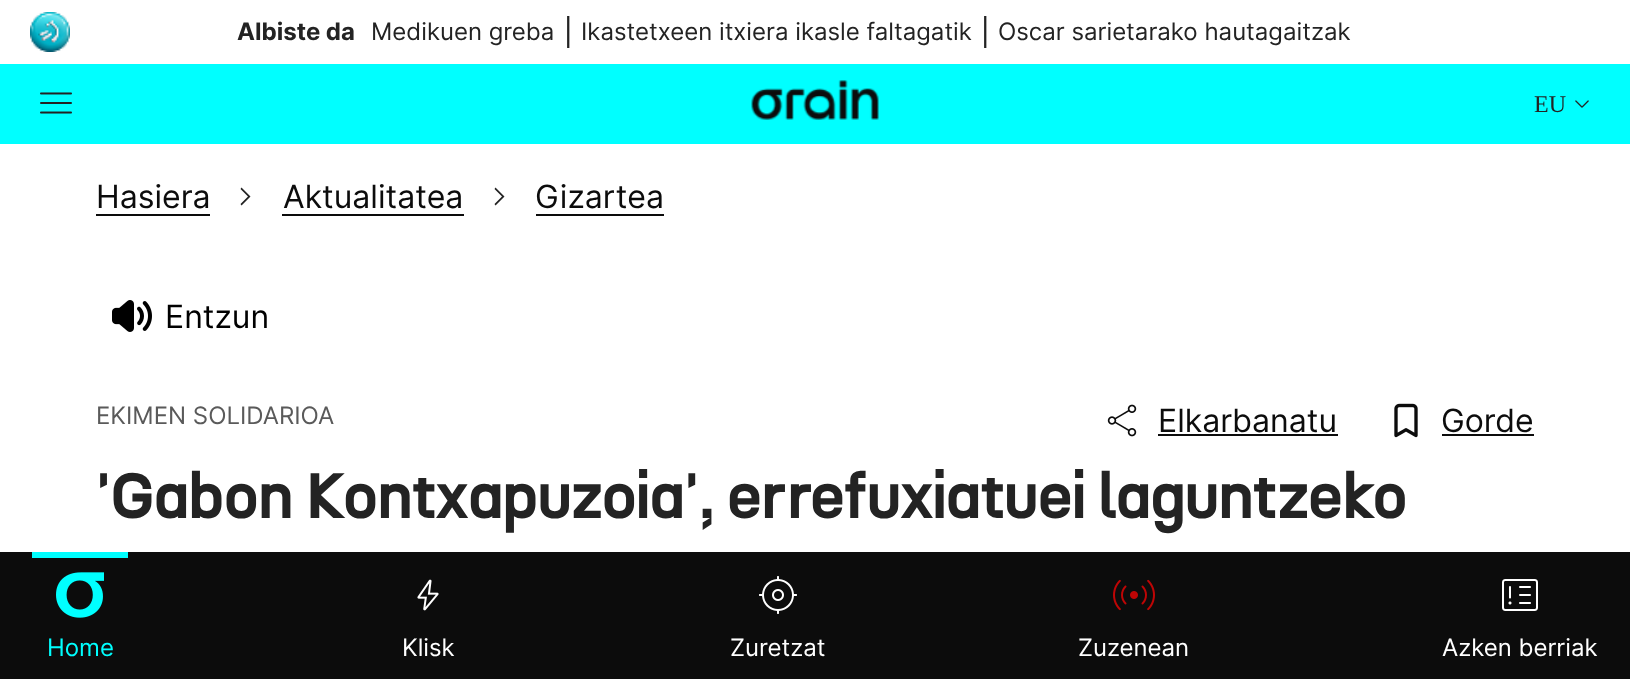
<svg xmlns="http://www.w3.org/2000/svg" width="1630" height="679">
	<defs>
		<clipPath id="clip1"><rect x="372" y="16" width="978" height="32" /></clipPath>
	</defs>
	<rect width="100%" height="100%" fill="#FFFFFF" />
	<image x="30" y="12" width="40" height="40" href="assets/img1.png" />
	<text x="237" y="40" font-family="Inter" font-size="24" font-weight="700" fill="#232323">Albiste da</text>
	<text x="371" y="40" font-family="Inter" font-size="24" fill="#232323">Medikuen greba</text>
	<g clip-path="url(#clip1)">
		<text x="563" y="44" font-family="Inter" font-size="32" fill="#232323">|</text>
	</g>
	<text x="581" y="40" font-family="Inter" font-size="24" fill="#232323">Ikastetxeen itxiera ikasle faltagatik</text>
	<g clip-path="url(#clip1)">
		<text x="980" y="44" font-family="Inter" font-size="32" fill="#232323">|</text>
	</g>
	<text x="998" y="40" font-family="Inter" font-size="24" fill="#232323">Oscar sarietarako hautagaitzak</text>
	<rect x="0" y="64" width="1630" height="80" fill="#00FFFF" />
	<image x="40" y="92" width="32" height="22" href="assets/img2.png" />
	<image x="751" y="80" width="128" height="40" href="assets/img3.png" />
	<text x="1534" y="112" font-family="Liberation Serif" font-size="24" fill="#232323">EU</text>
	<image x="1575" y="100" width="14" height="8" href="assets/img4.png" />
	<text x="96" y="208" font-family="Inter" font-size="32" fill="#0C0C0C">Hasiera</text>
	<rect x="96" y="214" width="114" height="2" fill="#0C0C0C" />
	<path d="M248 196.5L240.5 189L241.5 187.5L250.5 196.5L241.5 205.5L240.5 204Z" fill="#232323" />
	<text x="283" y="208" font-family="Inter" font-size="32" fill="#0C0C0C">Aktualitatea</text>
	<rect x="282" y="214" width="182" height="2" fill="#0C0C0C" />
	<path d="M502 196.5L494.5 189L495.5 187.5L504.5 196.5L495.5 205.5L494.5 204Z" fill="#232323" />
	<text x="535" y="208" font-family="Inter" font-size="32" fill="#0C0C0C">Gizartea</text>
	<rect x="536" y="214" width="128" height="2" fill="#0C0C0C" />
	<image x="112" y="300" width="40" height="32" href="assets/img5.png" />
	<text x="165" y="328" font-family="Inter" font-size="32" fill="#000000">Entzun</text>
	<text x="96" y="424" font-family="Inter" font-size="24" fill="#5A5A5A">EKIMEN SOLIDARIOA</text>
	<image x="1107" y="404" width="30" height="33" href="assets/img6.png" />
	<text x="1158" y="432" font-family="Inter" font-size="32" fill="#0C0C0C">Elkarbanatu</text>
	<rect x="1158" y="434" width="180" height="2" fill="#0C0C0C" />
	<image x="1394" y="403" width="24" height="35" href="assets/img7.png" />
	<text x="1441" y="432" font-family="Inter" font-size="32" fill="#0C0C0C">Gorde</text>
	<rect x="1442" y="434" width="92" height="2" fill="#0C0C0C" />
	<text x="96" y="518" font-family="'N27'" font-size="64" fill="#232323">'Gabon Kontxapuzoia', errefuxiatuei laguntzeko</text>
	<rect x="0" y="552" width="1630" height="127" fill="#0C0C0C" />
	<rect x="32" y="552" width="96" height="6" fill="#00FFFF" />
	<image x="56" y="572" width="48" height="46" href="assets/img8.png" />
	<text x="47" y="656" font-family="Inter" font-size="24" fill="#00FFFF">Home</text>
	<image x="417" y="579" width="22" height="32" href="assets/img9.png" />
	<text x="402" y="656" font-family="Inter" font-size="24" fill="#FFFFFF">Klisk</text>
	<image x="759" y="576" width="38" height="38" href="assets/img10.png" />
	<text x="730" y="656" font-family="Inter" font-size="24" fill="#FFFFFF">Zuretzat</text>
	<image x="1113" y="579" width="42" height="32" href="assets/img11.png" />
	<text x="1078" y="656" font-family="Inter" font-size="24" fill="#FFFFFF">Zuzenean</text>
	<image x="1502" y="579" width="36" height="32" href="assets/img12.png" />
	<text x="1442" y="656" font-family="Inter" font-size="24" fill="#FFFFFF">Azken berriak</text>
</svg>
